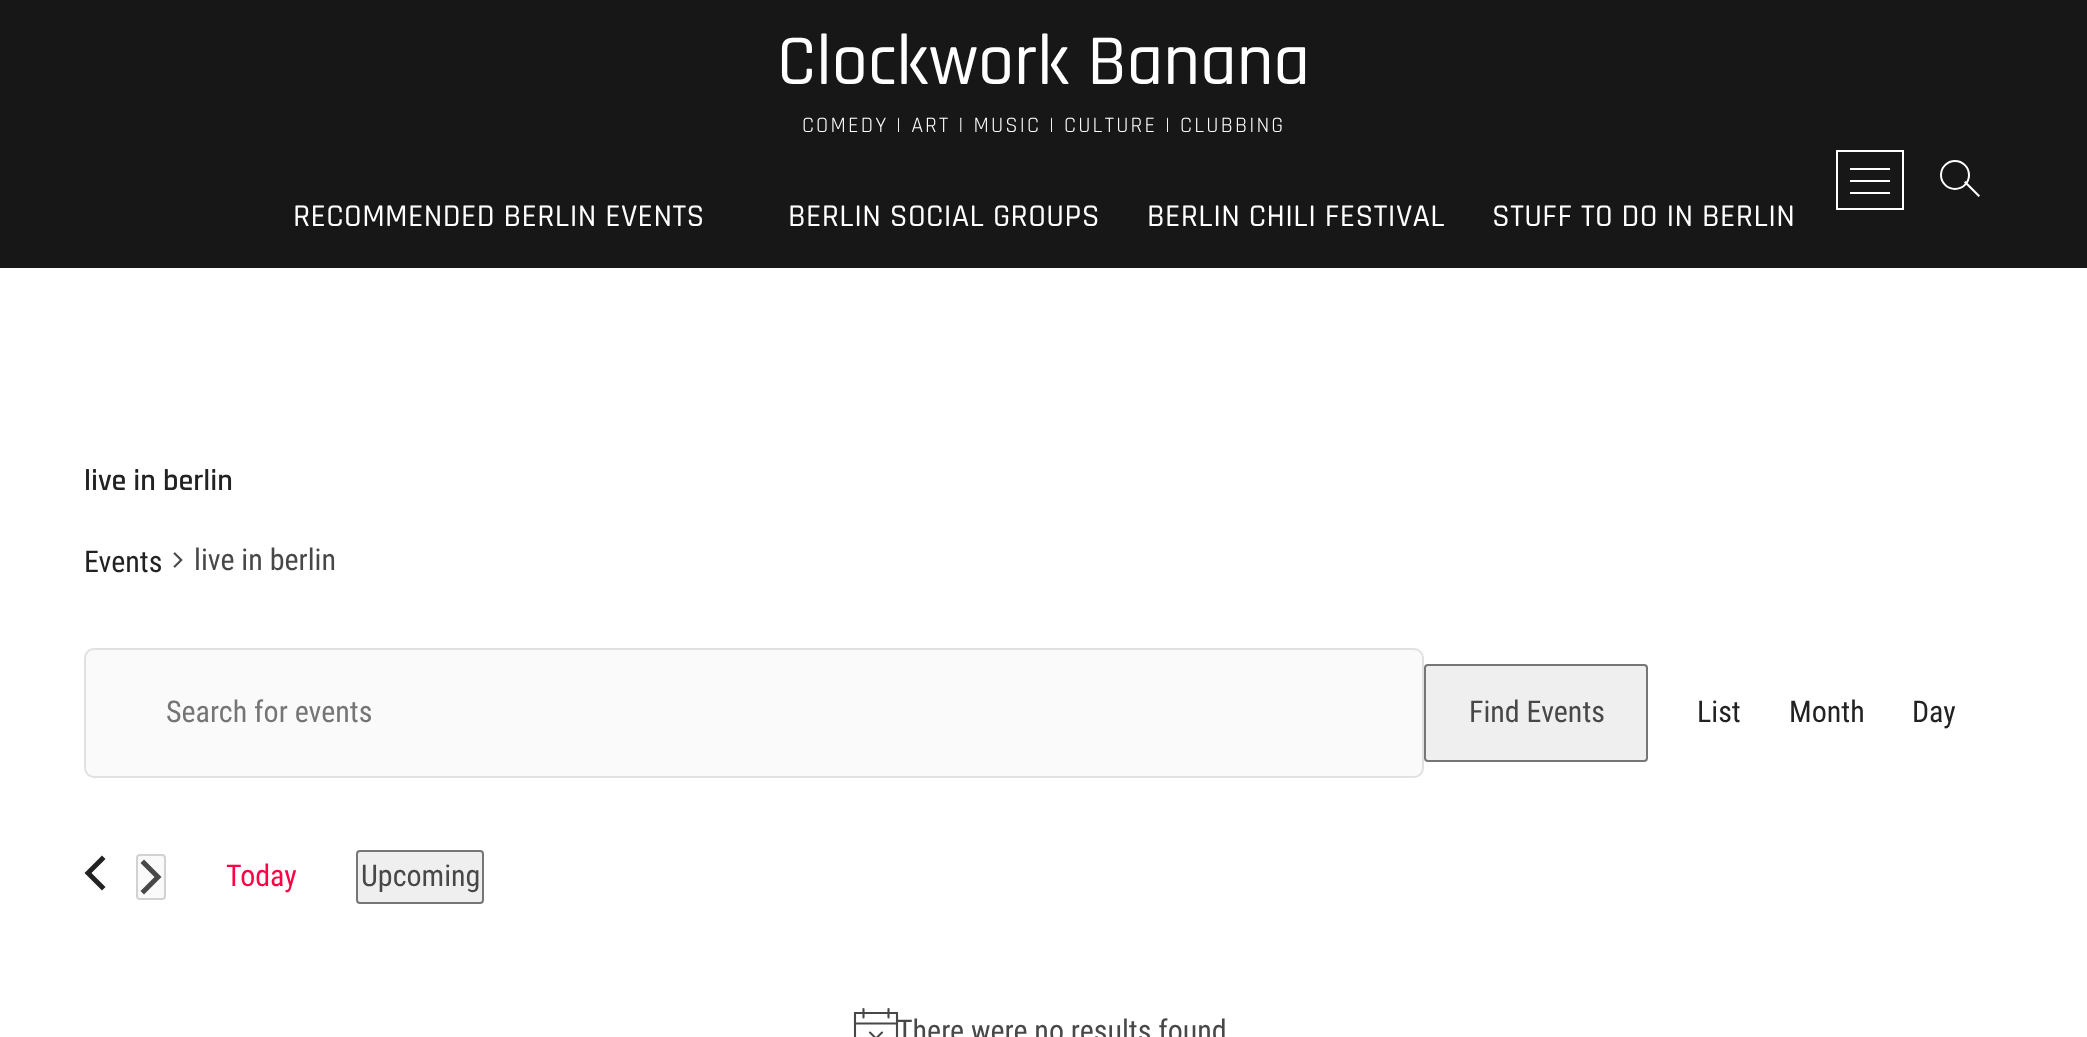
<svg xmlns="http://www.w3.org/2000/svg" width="2087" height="1037">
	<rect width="100%" height="100%" fill="#FFFFFF" />
	<rect x="0" y="0" width="2087" height="268" fill="#171717" />
	<text x="777" y="84" font-family="Rajdhani" font-size="72" font-weight="500" fill="#FFFFFF">Clockwork Banana</text>
	<text x="802" y="132" font-family="Rajdhani" font-size="22" letter-spacing="2.2" fill="#FFFFFF">COMEDY | ART | MUSIC | CULTURE | CLUBBING</text>
	<rect x="1837" y="151" width="66" height="58" fill="none" stroke="#FFFFFF" stroke-width="2" />
	<rect x="1850" y="180" width="40" height="2" fill="#FFFFFF" />
	<rect x="1850" y="168" width="40" height="2" fill="#FFFFFF" />
	<rect x="1850" y="192" width="40" height="2" fill="#FFFFFF" />
	<circle cx="1955" cy="175" r="14" fill="none" stroke="#FFFFFF" stroke-width="2" />
	<path d="M1964 182.5L1965.5 181L1980 195.5L1978.5 197Z" fill="#FFFFFF" />
	<g font-family="Rajdhani" font-size="32" font-weight="500" letter-spacing="0.4" fill="#FFFFFF">
		<text x="293" y="226">RECOMMENDED BERLIN EVENTS</text>
		<text x="788" y="226">BERLIN SOCIAL GROUPS</text>
		<text x="1147" y="226">BERLIN CHILI FESTIVAL</text>
		<text x="1492" y="226">STUFF TO DO IN BERLIN</text>
	</g>
	<text x="84" y="490" font-family="Rajdhani" font-size="30" font-weight="600" fill="#222222">live in berlin</text>
	<text x="84" y="572" font-family="Roboto Condensed" font-size="30" fill="#222222">Events</text>
	<image x="173" y="552" width="10" height="16" href="assets/img1.png" />
	<text x="194" y="570" font-family="Roboto Condensed" font-size="30" fill="#484848">live in berlin</text>
	<rect x="85" y="649" width="1338" height="128" rx="9" fill="#FAFAFA" stroke="#E1E1E1" stroke-width="2" />
	<text x="166" y="722" font-family="Roboto Condensed" font-size="30" fill="#757575">Search for events</text>
	<rect x="1425" y="665" width="222" height="96" rx="3" fill="#EFEFEF" stroke="#767676" stroke-width="2" />
	<text x="1469" y="722" font-family="Roboto Condensed" font-size="30" fill="#484848">Find Events</text>
	<g font-family="Roboto Condensed" font-size="30" fill="#222222">
		<text x="1697" y="722">List</text>
		<text x="1789" y="722">Month</text>
		<text x="1912" y="722">Day</text>
	</g>
	<path d="M105.5 887L102 890.5L84.5 873L102 855.5L105.5 859L91.5 873Z" fill="#222222" />
	<rect x="137" y="855" width="28" height="44" rx="3" fill="#FAFAFA" stroke="#D2D2D2" stroke-width="2" />
	<path d="M140.5 863L144 859.5L161.5 877L144 894.5L140.5 891L154.5 877Z" fill="#484848" />
	<text x="226" y="886" font-family="Roboto Condensed" font-size="30" fill="#FF0245">Today</text>
	<rect x="357" y="851" width="126" height="52" rx="3" fill="#EFEFEF" stroke="#767676" stroke-width="2" />
	<text x="361" y="886" font-family="Roboto Condensed" font-size="30" fill="#484848">Upcoming</text>
	<path d="M855 1013H897V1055H855Z" fill="none" stroke="#484848" stroke-width="2.1" />
	<path d="M870 1032.5L882 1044.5M882 1032.5L870 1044.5M863.5 1009V1017.5M888.5 1009V1017.5" fill="none" stroke="#484848" stroke-width="2.1" stroke-linecap="round" />
	<path d="M855 1023.5H897" fill="none" stroke="#484848" stroke-width="2.1" stroke-linecap="square" />
	<text x="897" y="1041" font-family="Roboto Condensed" font-size="30" fill="#484848">There were no results found</text>
</svg>
